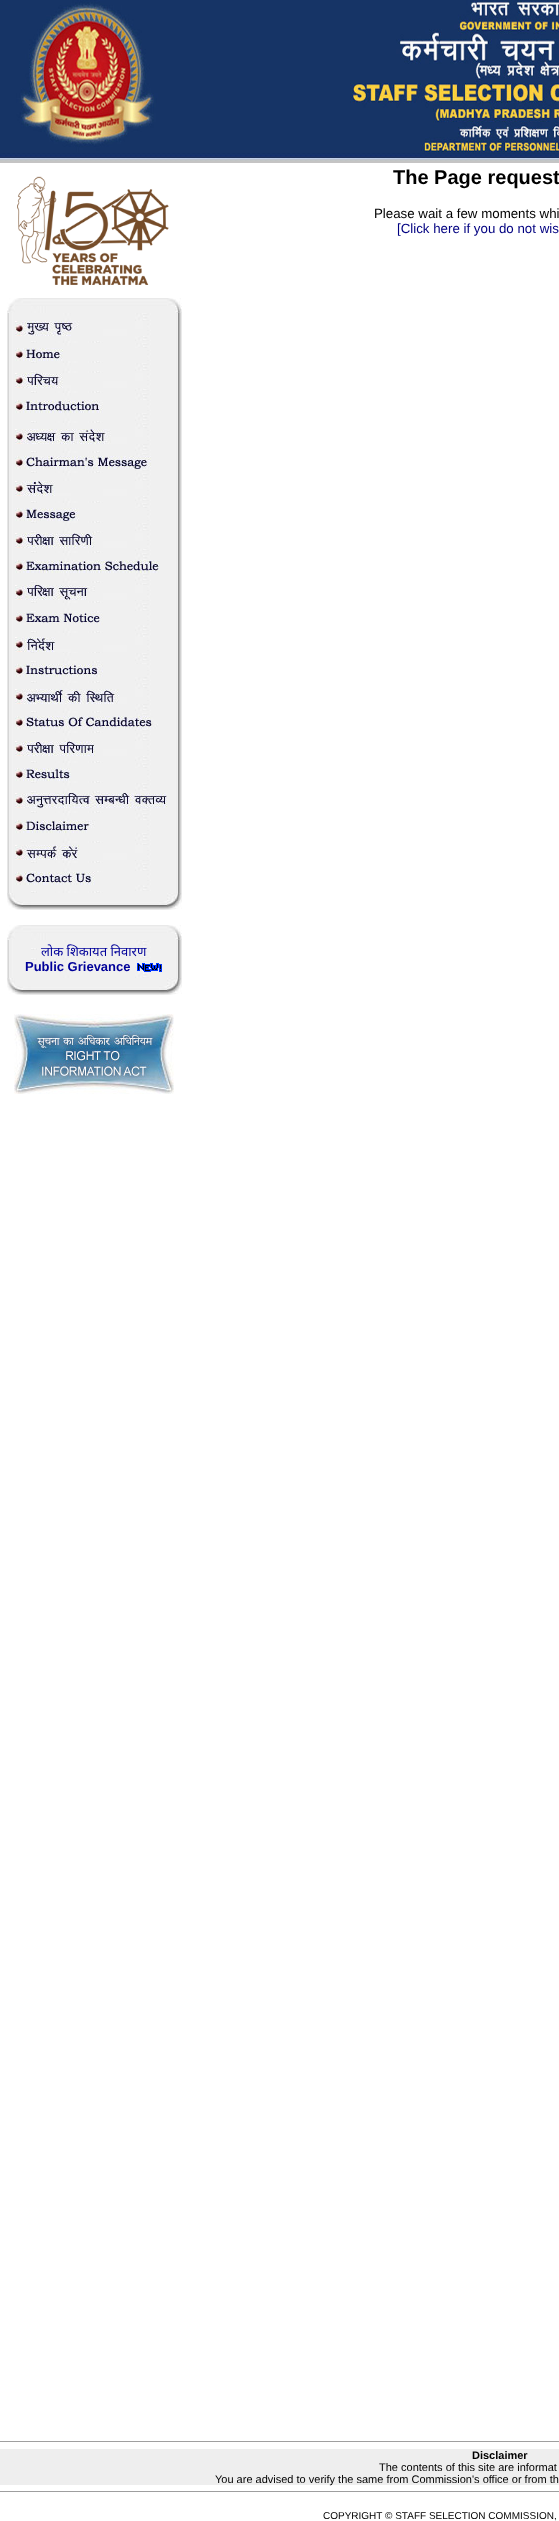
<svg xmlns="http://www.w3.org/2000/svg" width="559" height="2521">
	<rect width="100%" height="100%" fill="#FFFFFF" />
	<image x="0" y="0" width="559" height="153" href="assets/img1.png" />
	<image x="0" y="153" width="559" height="10" href="assets/img2.png" />
	<text x="393" y="184" font-family="Liberation Sans" font-size="20" font-weight="700" fill="#000000">The Page request</text>
	<text x="374" y="218" font-family="Liberation Sans" font-size="13.3" fill="#000000">Please wait a few moments whi</text>
	<text x="397" y="233" font-family="Liberation Sans" font-size="13.3" fill="#000080">[Click here if you do not wis</text>
	<image x="17" y="176" width="152" height="109" href="assets/img3.png" />
	<image x="7" y="298" width="175" height="15" href="assets/img4.png" />
	<image x="7" y="313" width="175" height="580" href="assets/img5.png" />
	<image x="15" y="321" width="132" height="15" href="assets/img6.png" />
	<image x="15" y="348" width="132" height="13" href="assets/img7.png" />
	<image x="15" y="373" width="132" height="15" href="assets/img8.png" />
	<image x="15" y="400" width="132" height="13" href="assets/img9.png" />
	<image x="15" y="429" width="132" height="15" href="assets/img10.png" />
	<image x="15" y="456" width="136" height="13" href="assets/img11.png" />
	<image x="15" y="481" width="132" height="15" href="assets/img12.png" />
	<image x="15" y="508" width="132" height="13" href="assets/img13.png" />
	<image x="15" y="533" width="132" height="15" href="assets/img14.png" />
	<image x="15" y="560" width="144" height="13" href="assets/img15.png" />
	<image x="15" y="585" width="132" height="15" href="assets/img16.png" />
	<image x="15" y="612" width="132" height="13" href="assets/img17.png" />
	<image x="15" y="637" width="132" height="15" href="assets/img18.png" />
	<image x="15" y="664" width="132" height="13" href="assets/img19.png" />
	<image x="15" y="689" width="132" height="15" href="assets/img20.png" />
	<image x="15" y="716" width="143" height="13" href="assets/img21.png" />
	<image x="15" y="741" width="132" height="15" href="assets/img22.png" />
	<image x="15" y="768" width="132" height="13" href="assets/img23.png" />
	<image x="15" y="793" width="152" height="15" href="assets/img24.png" />
	<image x="15" y="820" width="132" height="13" href="assets/img25.png" />
	<image x="15" y="845" width="132" height="15" href="assets/img26.png" />
	<image x="15" y="872" width="132" height="13" href="assets/img27.png" />
	<image x="7" y="893" width="175" height="17" href="assets/img28.png" />
	<image x="7" y="925" width="175" height="15" href="assets/img4.png" />
	<image x="7" y="940" width="175" height="38" href="assets/img29.png" />
	<text x="41" y="956" font-family="Noto Sans" font-size="13" fill="#000099">लोक शिकायत निवारण</text>
	<text x="25" y="971" font-family="Liberation Sans" font-size="13" font-weight="700" fill="#000099">Public Grievance</text>
	<image x="137" y="963" width="25" height="9" href="assets/img30.png" />
	<image x="7" y="978" width="175" height="17" href="assets/img28.png" />
	<image x="14" y="1014" width="160" height="80" href="assets/img31.png" />
	<rect x="0" y="2441" width="559" height="1" fill="#9F9F9F" />
	<rect x="0" y="2449" width="559" height="36" fill="#EEEEEE" />
	<text x="472" y="2459" font-family="Liberation Sans" font-size="11" font-weight="700" fill="#000000">Disclaimer</text>
	<g font-family="Liberation Sans" font-size="11" fill="#000000">
		<text x="379" y="2471">The contents of this site are informat</text>
		<text x="215" y="2483">You are advised to verify the same from Commission's office or from th</text>
	</g>
	<rect x="0" y="2491" width="559" height="1" fill="#9F9F9F" />
	<text x="323" y="2519" font-family="Liberation Sans" font-size="10" fill="#000000">COPYRIGHT © STAFF SELECTION COMMISSION,</text>
</svg>
